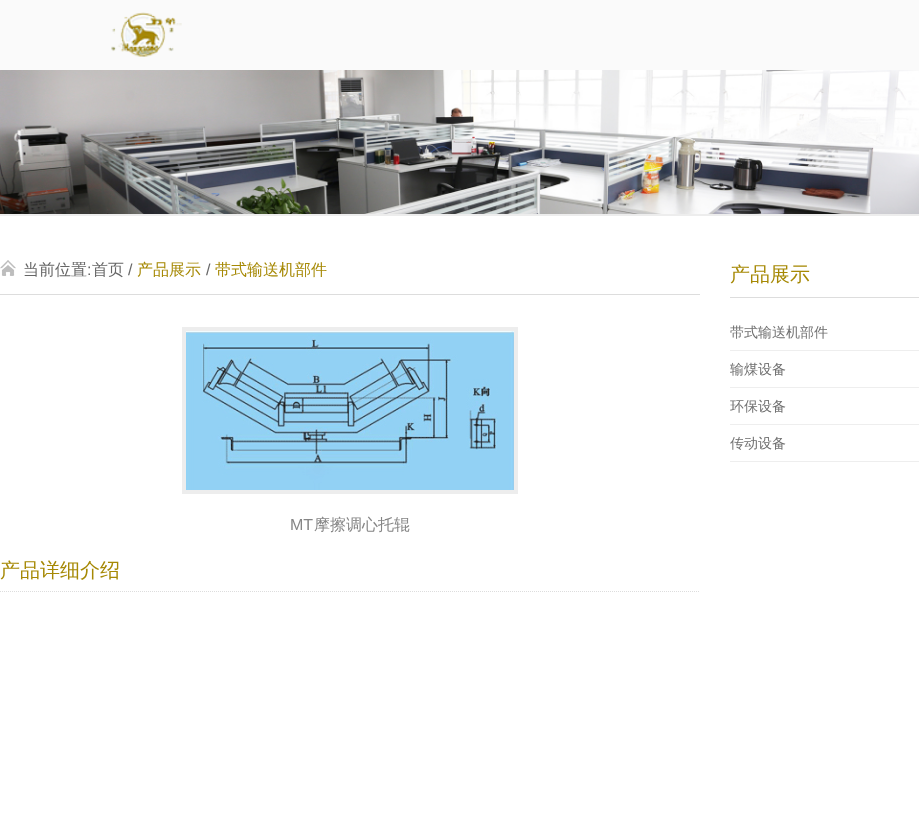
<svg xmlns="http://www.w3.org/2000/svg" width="919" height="818">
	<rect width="100%" height="100%" fill="#FFFFFF" />
	<rect x="0" y="0" width="919" height="70" fill="#FAFAFA" />
	<image x="111" y="12" width="71" height="45" href="assets/img1.png" />
	<rect x="0" y="214" width="919" height="2" fill="#EDEDED" />
	<image x="0" y="70" width="919" height="144" href="assets/img2.png" />
	<rect x="0" y="294" width="700" height="1" fill="#DDDDDD" />
	<image x="0" y="260" width="16" height="16" href="assets/img3.png" />
	<text x="23" y="275" font-family="WenQuanYi Zen Hei" font-size="16" font-weight="500" fill="#666666">当前位置</text>
	<text x="87" y="275" font-family="Liberation Sans" font-size="16" fill="#666666">:</text>
	<text x="92" y="275" font-family="WenQuanYi Zen Hei" font-size="16" font-weight="500" fill="#666666">首页</text>
	<text x="128" y="275" font-family="Liberation Sans" font-size="16" fill="#666666">/</text>
	<text x="137" y="275" font-family="WenQuanYi Zen Hei" font-size="16" font-weight="500" fill="#A68905">产品展示</text>
	<text x="206" y="275" font-family="Liberation Sans" font-size="16" fill="#666666">/</text>
	<text x="215" y="275" font-family="WenQuanYi Zen Hei" font-size="16" font-weight="500" fill="#A68905">带式输送机部件</text>
	<rect x="184" y="329" width="332" height="163" fill="none" stroke="#EDEDED" stroke-width="4" />
	<image x="186" y="331" width="328" height="159" href="assets/img4.png" />
	<text x="290" y="530" font-family="Liberation Sans" font-size="16" fill="#858585">MT</text>
	<text x="314" y="530" font-family="WenQuanYi Zen Hei" font-size="16" font-weight="500" fill="#858585">摩擦调心托辊</text>
	<path d="M0 591.5H700" fill="none" stroke="#DDDDDD" stroke-dasharray="1 1" />
	<text x="0" y="577" font-family="WenQuanYi Zen Hei" font-size="20" font-weight="500" fill="#A68905">产品详细介绍</text>
	<rect x="730" y="297" width="189" height="1" fill="#DDDDDD" />
	<text x="730" y="281" font-family="WenQuanYi Zen Hei" font-size="20" font-weight="500" fill="#A68905">产品展示</text>
	<rect x="730" y="350" width="189" height="1" fill="#EEEEEE" />
	<text x="730" y="337" font-family="WenQuanYi Zen Hei" font-size="14" font-weight="500" fill="#707070">带式输送机部件</text>
	<rect x="730" y="387" width="189" height="1" fill="#EEEEEE" />
	<text x="730" y="374" font-family="WenQuanYi Zen Hei" font-size="14" font-weight="500" fill="#707070">输煤设备</text>
	<rect x="730" y="424" width="189" height="1" fill="#EEEEEE" />
	<text x="730" y="411" font-family="WenQuanYi Zen Hei" font-size="14" font-weight="500" fill="#707070">环保设备</text>
	<rect x="730" y="461" width="189" height="1" fill="#EEEEEE" />
	<text x="730" y="448" font-family="WenQuanYi Zen Hei" font-size="14" font-weight="500" fill="#707070">传动设备</text>
</svg>
